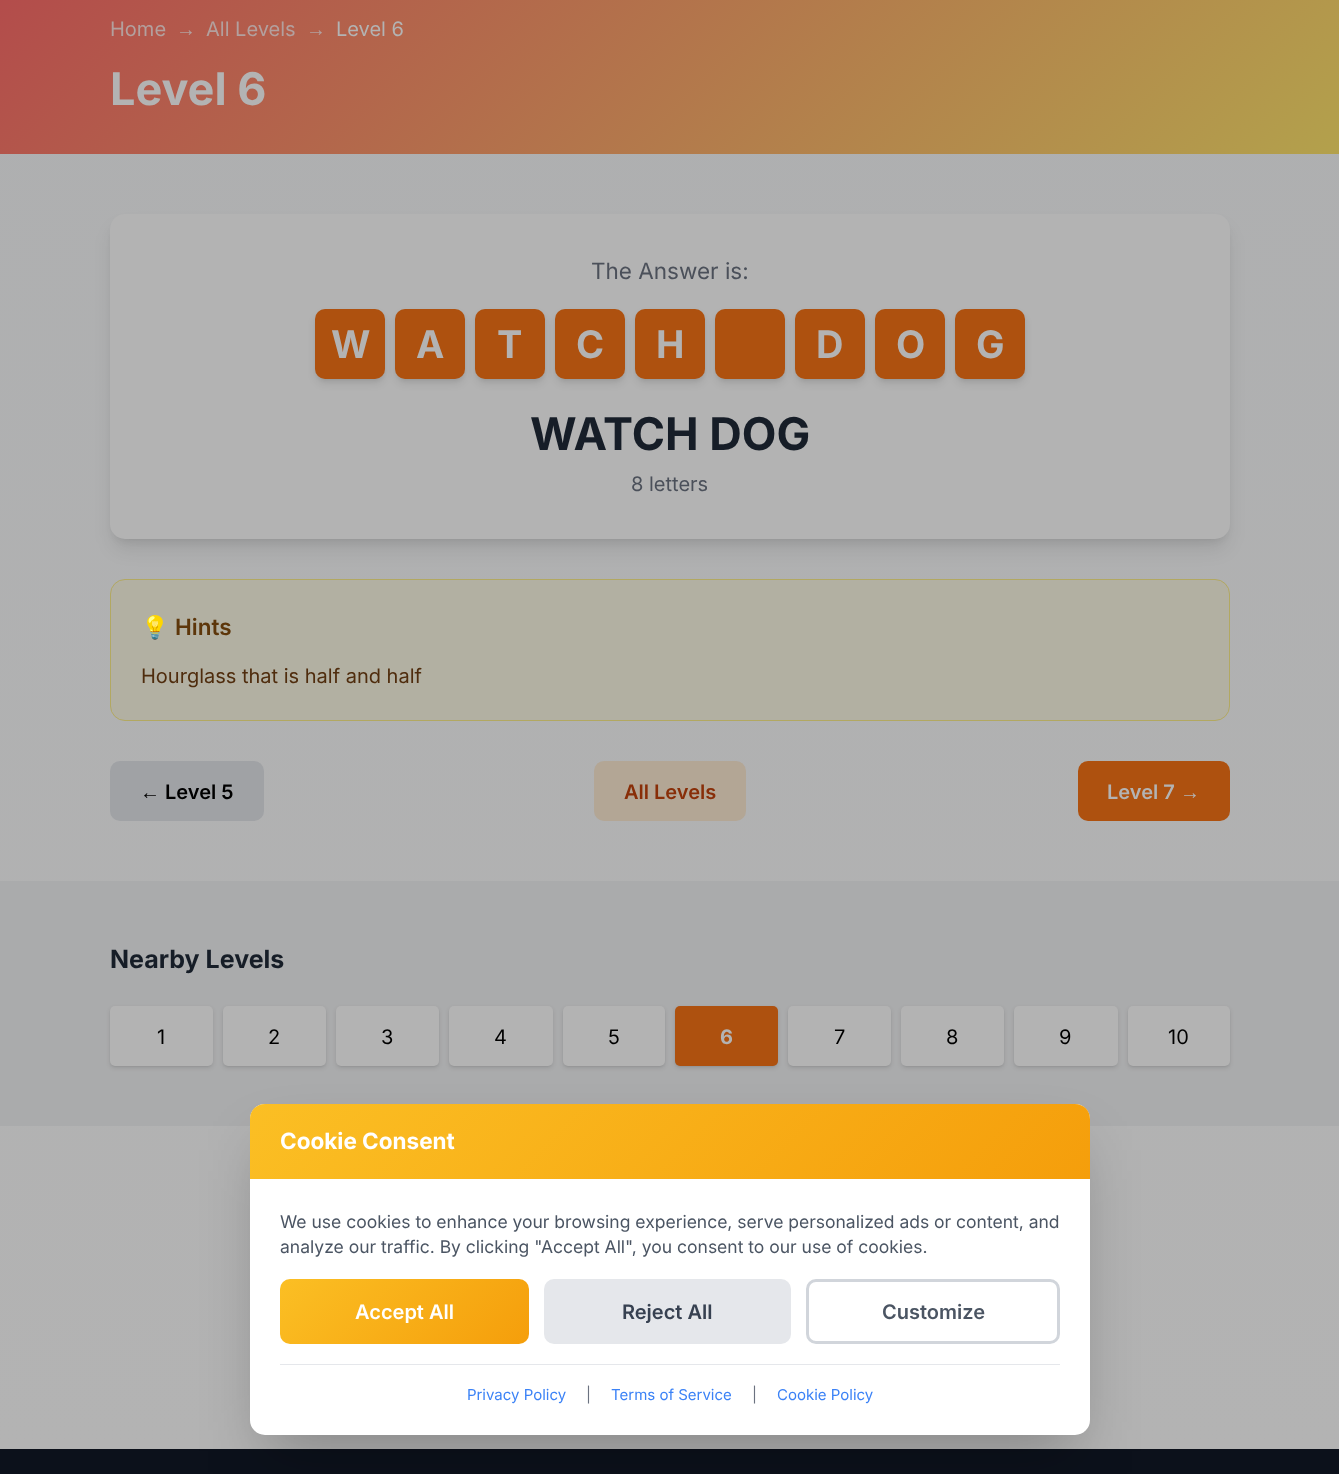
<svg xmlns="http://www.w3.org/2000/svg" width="1339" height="1474">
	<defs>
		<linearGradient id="g1" gradientUnits="userSpaceOnUse" x1="670" y1="-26" x2="670" y2="1449"><stop offset="0" stop-color="#AEAFB0" /><stop offset="1" stop-color="#B3B3B3" /></linearGradient>
		<linearGradient id="g2" gradientUnits="userSpaceOnUse" x1="290" y1="-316" x2="1050" y2="444"><stop offset="0" stop-color="#B34B4B" /><stop offset="1" stop-color="#B3A14C" /></linearGradient>
		<linearGradient id="g3" gradientUnits="userSpaceOnUse" x1="441" y1="913" x2="899" y2="1370"><stop offset="0" stop-color="#FBBF24" /><stop offset="1" stop-color="#F59E0B" /></linearGradient>
		<linearGradient id="g4" gradientUnits="userSpaceOnUse" x1="326" y1="1233" x2="483" y2="1390"><stop offset="0" stop-color="#FBBF24" /><stop offset="1" stop-color="#F59E0B" /></linearGradient>
	</defs>
	<rect width="100%" height="100%" fill="#FFFFFF" />
	<rect x="0" y="154" width="1339" height="1295" fill="url(#g1)" />
	<rect x="0" y="0" width="1339" height="154" fill="url(#g2)" />
	<text x="110" y="36" font-family="Inter" font-size="20" fill="#B3A09E">Home</text>
	<text x="176" y="36" font-family="Liberation Serif" font-size="20" fill="#B3A09E">→</text>
	<text x="206" y="36" font-family="Inter" font-size="20" fill="#B3A09E">All Levels</text>
	<text x="306" y="36" font-family="Liberation Serif" font-size="20" fill="#B3A09E">→</text>
	<text x="336" y="36" font-family="Inter" font-size="20" fill="#B3B3B3">Level 6</text>
	<text x="110" y="105" font-family="Inter" font-size="45" font-weight="700" fill="#B3B3B3">Level 6</text>
	<rect x="115" y="224" width="1110" height="315" rx="10" fill="#000000" fill-opacity="0.1" filter="blur(4px)" />
	<rect x="114" y="230" width="1112" height="318" rx="11" fill="#000000" fill-opacity="0.1" filter="blur(9.5px)" />
	<rect x="110" y="214" width="1120" height="325" rx="15" fill="#B3B3B3" />
	<text x="591" y="279" font-family="Inter" font-size="22.5" fill="#4B505A">The Answer is:</text>
	<rect x="318" y="314" width="65" height="65" rx="8" fill="#000000" fill-opacity="0.1" filter="blur(2.5px)" />
	<rect x="316" y="315" width="68" height="68" rx="9" fill="#000000" fill-opacity="0.1" filter="blur(4px)" />
	<rect x="315" y="309" width="70" height="70" rx="10" fill="#AE510F" />
	<text x="331" y="358" font-family="Inter" font-size="38" font-weight="700" fill="#B3B3B3">W</text>
	<rect x="398" y="314" width="65" height="65" rx="8" fill="#000000" fill-opacity="0.1" filter="blur(2.5px)" />
	<rect x="396" y="315" width="68" height="68" rx="9" fill="#000000" fill-opacity="0.1" filter="blur(4px)" />
	<rect x="395" y="309" width="70" height="70" rx="10" fill="#AE510F" />
	<text x="416" y="358" font-family="Inter" font-size="38" font-weight="700" fill="#B3B3B3">A</text>
	<rect x="478" y="314" width="65" height="65" rx="8" fill="#000000" fill-opacity="0.1" filter="blur(2.5px)" />
	<rect x="476" y="315" width="68" height="68" rx="9" fill="#000000" fill-opacity="0.1" filter="blur(4px)" />
	<rect x="475" y="309" width="70" height="70" rx="10" fill="#AE510F" />
	<text x="497" y="358" font-family="Inter" font-size="38" font-weight="700" fill="#B3B3B3">T</text>
	<rect x="558" y="314" width="65" height="65" rx="8" fill="#000000" fill-opacity="0.1" filter="blur(2.5px)" />
	<rect x="556" y="315" width="68" height="68" rx="9" fill="#000000" fill-opacity="0.1" filter="blur(4px)" />
	<rect x="555" y="309" width="70" height="70" rx="10" fill="#AE510F" />
	<text x="576" y="358" font-family="Inter" font-size="38" font-weight="700" fill="#B3B3B3">C</text>
	<rect x="638" y="314" width="65" height="65" rx="8" fill="#000000" fill-opacity="0.1" filter="blur(2.5px)" />
	<rect x="636" y="315" width="68" height="68" rx="9" fill="#000000" fill-opacity="0.1" filter="blur(4px)" />
	<rect x="635" y="309" width="70" height="70" rx="10" fill="#AE510F" />
	<text x="656" y="358" font-family="Inter" font-size="38" font-weight="700" fill="#B3B3B3">H</text>
	<rect x="718" y="314" width="65" height="65" rx="8" fill="#000000" fill-opacity="0.1" filter="blur(2.5px)" />
	<rect x="716" y="315" width="68" height="68" rx="9" fill="#000000" fill-opacity="0.1" filter="blur(4px)" />
	<rect x="715" y="309" width="70" height="70" rx="10" fill="#AE510F" />
	<rect x="798" y="314" width="65" height="65" rx="8" fill="#000000" fill-opacity="0.1" filter="blur(2.5px)" />
	<rect x="796" y="315" width="68" height="68" rx="9" fill="#000000" fill-opacity="0.1" filter="blur(4px)" />
	<rect x="795" y="309" width="70" height="70" rx="10" fill="#AE510F" />
	<text x="816" y="358" font-family="Inter" font-size="38" font-weight="700" fill="#B3B3B3">D</text>
	<rect x="878" y="314" width="65" height="65" rx="8" fill="#000000" fill-opacity="0.1" filter="blur(2.5px)" />
	<rect x="876" y="315" width="68" height="68" rx="9" fill="#000000" fill-opacity="0.1" filter="blur(4px)" />
	<rect x="875" y="309" width="70" height="70" rx="10" fill="#AE510F" />
	<text x="896" y="358" font-family="Inter" font-size="38" font-weight="700" fill="#B3B3B3">O</text>
	<rect x="958" y="314" width="65" height="65" rx="8" fill="#000000" fill-opacity="0.1" filter="blur(2.5px)" />
	<rect x="956" y="315" width="68" height="68" rx="9" fill="#000000" fill-opacity="0.1" filter="blur(4px)" />
	<rect x="955" y="309" width="70" height="70" rx="10" fill="#AE510F" />
	<text x="976" y="358" font-family="Inter" font-size="38" font-weight="700" fill="#B3B3B3">G</text>
	<text x="530" y="450" font-family="Inter" font-size="45" font-weight="700" fill="#161D27">WATCH DOG</text>
	<text x="631" y="491" font-family="Inter" font-size="20" fill="#4B505A">8 letters</text>
	<rect x="110.5" y="579.5" width="1119" height="141" rx="14.5" fill="#B2B0A2" stroke="#B2A861" />
	<text x="141" y="635" font-family="Noto Color Emoji" font-size="22.5" font-weight="700" fill="#5D360A">💡</text>
	<text x="175" y="635" font-family="Inter" font-size="22.5" font-weight="600" fill="#5D360A">Hints</text>
	<text x="141" y="683" font-family="Inter" font-size="20" fill="#4F2C0D">Hourglass that is half and half</text>
	<rect x="110" y="761" width="154" height="60" rx="10" fill="#A0A2A5" />
	<text x="140" y="799" font-family="Liberation Serif" font-size="20" font-weight="700" fill="#000000">←</text>
	<text x="165" y="799" font-family="Inter" font-size="20" font-weight="600" fill="#000000">Level 5</text>
	<rect x="594" y="761" width="152" height="60" rx="10" fill="#B3A695" />
	<text x="624" y="799" font-family="Inter" font-size="20" font-weight="600" fill="#882E08">All Levels</text>
	<rect x="1078" y="761" width="152" height="60" rx="10" fill="#AE510F" />
	<text x="1107" y="799" font-family="Inter" font-size="20" font-weight="600" fill="#B3B3B3">Level 7</text>
	<text x="1180" y="799" font-family="Liberation Serif" font-size="20" font-weight="700" fill="#B3B3B3">→</text>
	<rect x="0" y="881" width="1339" height="245" fill="#AAABAC" />
	<text x="110" y="968" font-family="Inter" font-size="25" font-weight="700" fill="#161D27">Nearby Levels</text>
	<rect x="111" y="1009" width="100" height="57" rx="4" fill="#000000" fill-opacity="0.1" filter="blur(1px)" />
	<rect x="110" y="1008" width="103" height="60" rx="5" fill="#000000" fill-opacity="0.1" filter="blur(2px)" />
	<rect x="110" y="1006" width="103" height="60" rx="5" fill="#B3B3B3" />
	<text x="157" y="1044" font-family="Inter" font-size="20" fill="#000000">1</text>
	<rect x="224" y="1009" width="101" height="57" rx="4" fill="#000000" fill-opacity="0.1" filter="blur(1px)" />
	<rect x="223" y="1008" width="103" height="60" rx="5" fill="#000000" fill-opacity="0.1" filter="blur(2px)" />
	<rect x="223" y="1006" width="103" height="60" rx="5" fill="#B3B3B3" />
	<text x="268" y="1044" font-family="Inter" font-size="20" fill="#000000">2</text>
	<rect x="338" y="1009" width="100" height="57" rx="4" fill="#000000" fill-opacity="0.1" filter="blur(1px)" />
	<rect x="336" y="1008" width="103" height="60" rx="5" fill="#000000" fill-opacity="0.1" filter="blur(2px)" />
	<rect x="336" y="1006" width="103" height="60" rx="5" fill="#B3B3B3" />
	<text x="381" y="1044" font-family="Inter" font-size="20" fill="#000000">3</text>
	<rect x="450" y="1009" width="101" height="57" rx="4" fill="#000000" fill-opacity="0.1" filter="blur(1px)" />
	<rect x="449" y="1008" width="104" height="60" rx="5" fill="#000000" fill-opacity="0.1" filter="blur(2px)" />
	<rect x="449" y="1006" width="104" height="60" rx="5" fill="#B3B3B3" />
	<text x="494" y="1044" font-family="Inter" font-size="20" fill="#000000">4</text>
	<rect x="564" y="1009" width="100" height="57" rx="4" fill="#000000" fill-opacity="0.1" filter="blur(1px)" />
	<rect x="563" y="1008" width="102" height="60" rx="5" fill="#000000" fill-opacity="0.1" filter="blur(2px)" />
	<rect x="563" y="1006" width="102" height="60" rx="5" fill="#B3B3B3" />
	<text x="608" y="1044" font-family="Inter" font-size="20" fill="#000000">5</text>
	<rect x="676" y="1009" width="100" height="57" rx="4" fill="#000000" fill-opacity="0.1" filter="blur(1px)" />
	<rect x="675" y="1008" width="103" height="60" rx="5" fill="#000000" fill-opacity="0.1" filter="blur(2px)" />
	<rect x="675" y="1006" width="103" height="60" rx="5" fill="#AE510F" />
	<text x="720" y="1044" font-family="Inter" font-size="20" font-weight="700" fill="#B3B3B3">6</text>
	<rect x="789" y="1009" width="101" height="57" rx="4" fill="#000000" fill-opacity="0.1" filter="blur(1px)" />
	<rect x="788" y="1008" width="103" height="60" rx="5" fill="#000000" fill-opacity="0.1" filter="blur(2px)" />
	<rect x="788" y="1006" width="103" height="60" rx="5" fill="#B3B3B3" />
	<text x="834" y="1044" font-family="Inter" font-size="20" fill="#000000">7</text>
	<rect x="903" y="1009" width="100" height="57" rx="4" fill="#000000" fill-opacity="0.1" filter="blur(1px)" />
	<rect x="901" y="1008" width="103" height="60" rx="5" fill="#000000" fill-opacity="0.1" filter="blur(2px)" />
	<rect x="901" y="1006" width="103" height="60" rx="5" fill="#B3B3B3" />
	<text x="946" y="1044" font-family="Inter" font-size="20" fill="#000000">8</text>
	<rect x="1015" y="1009" width="101" height="57" rx="4" fill="#000000" fill-opacity="0.1" filter="blur(1px)" />
	<rect x="1014" y="1008" width="104" height="60" rx="5" fill="#000000" fill-opacity="0.1" filter="blur(2px)" />
	<rect x="1014" y="1006" width="104" height="60" rx="5" fill="#B3B3B3" />
	<text x="1059" y="1044" font-family="Inter" font-size="20" fill="#000000">9</text>
	<rect x="1129" y="1009" width="100" height="57" rx="4" fill="#000000" fill-opacity="0.1" filter="blur(1px)" />
	<rect x="1128" y="1008" width="102" height="60" rx="5" fill="#000000" fill-opacity="0.1" filter="blur(2px)" />
	<rect x="1128" y="1006" width="102" height="60" rx="5" fill="#B3B3B3" />
	<text x="1168" y="1044" font-family="Inter" font-size="20" fill="#000000">10</text>
	<rect x="0" y="1449" width="1339" height="25" fill="#0C111B" />
	<rect x="265" y="1150" width="810" height="301" fill="#000000" fill-opacity="0.25" filter="blur(31px)" />
	<rect x="250" y="1104" width="840" height="331" rx="15" fill="#FFFFFF" />
	<path d="M265 1104H1075C1083.5 1104 1090 1110.5 1090 1119V1179H250V1119C250 1110.5 256.5 1104 265 1104Z" fill="url(#g3)" />
	<text x="280" y="1149" font-family="Inter" font-size="22.5" font-weight="700" fill="#FFFFFF">Cookie Consent</text>
	<g font-family="Inter" font-size="17.5" fill="#4B5563">
		<text x="280" y="1228">We use cookies to enhance your browsing experience, serve personalized ads or content, and</text>
		<text x="280" y="1253">analyze our traffic. By clicking "Accept All", you consent to our use of cookies.</text>
	</g>
	<rect x="280" y="1279" width="249" height="65" rx="10" fill="url(#g4)" />
	<text x="355" y="1319" font-family="Inter" font-size="20" font-weight="600" fill="#FFFFFF">Accept All</text>
	<rect x="544" y="1279" width="247" height="65" rx="10" fill="#E5E7EB" />
	<text x="622" y="1319" font-family="Inter" font-size="20" font-weight="600" fill="#374151">Reject All</text>
	<rect x="807.5" y="1280.5" width="251" height="62" rx="8.5" fill="none" stroke="#D1D5DB" stroke-width="3" />
	<text x="882" y="1319" font-family="Inter" font-size="20" font-weight="600" fill="#4B5563">Customize</text>
	<rect x="280" y="1364" width="780" height="1" fill="#E5E7EB" />
	<text x="467" y="1400" font-family="Inter" font-size="15" fill="#3B82F6">Privacy Policy</text>
	<text x="586" y="1400" font-family="Inter" font-size="15" fill="#6B7280">|</text>
	<text x="611" y="1400" font-family="Inter" font-size="15" fill="#3B82F6">Terms of Service</text>
	<text x="752" y="1400" font-family="Inter" font-size="15" fill="#6B7280">|</text>
	<text x="777" y="1400" font-family="Inter" font-size="15" fill="#3B82F6">Cookie Policy</text>
</svg>
